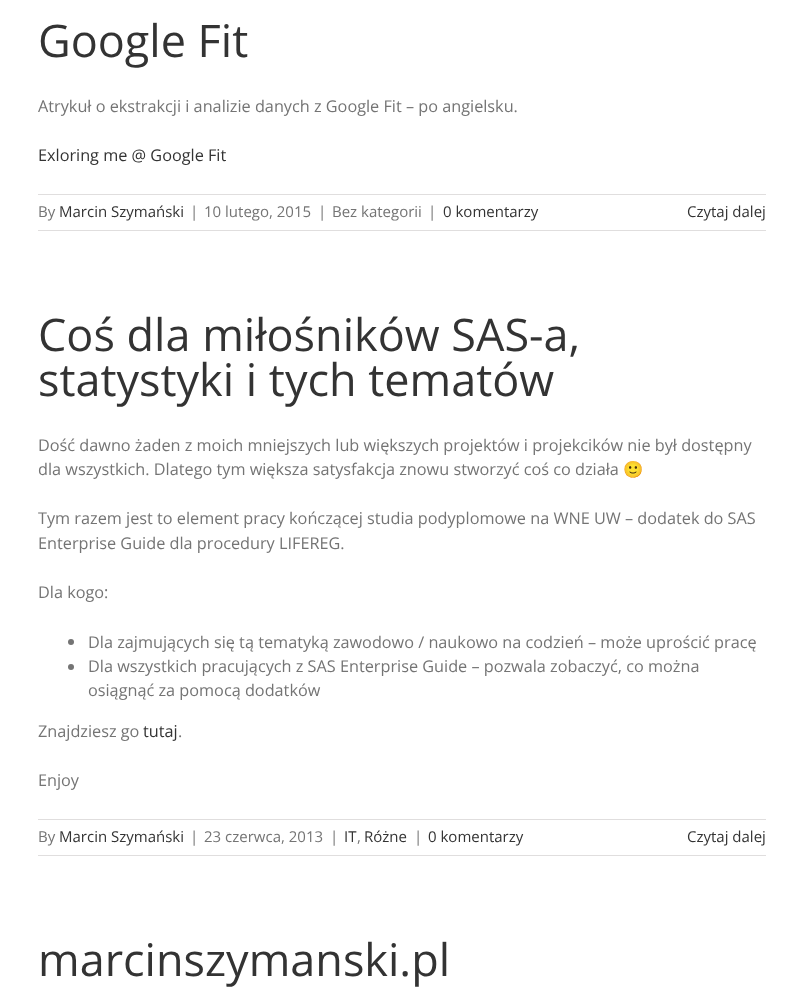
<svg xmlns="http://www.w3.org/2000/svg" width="803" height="1007">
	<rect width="100%" height="100%" fill="#FFFFFF" />
	<text x="38" y="57" font-family="Open Sans" font-size="45" fill="#333333">Google Fit</text>
	<text x="38" y="112" font-family="Open Sans" font-size="16.25" fill="#747474">Atrykuł o ekstrakcji i analizie danych z Google Fit – po angielsku.</text>
	<text x="38" y="161" font-family="Open Sans" font-size="16.25" fill="#333333">Exloring me @ Google Fit</text>
	<rect x="38" y="194" width="728" height="1" fill="#E0DEDE" />
	<rect x="38" y="230" width="728" height="1" fill="#E0DEDE" />
	<text x="38" y="217" font-family="Open Sans" font-size="15" fill="#747474">By</text>
	<text x="59" y="217" font-family="Open Sans" font-size="15" fill="#333333">Marcin Szymański</text>
	<g font-family="Open Sans" font-size="15" fill="#747474">
		<text x="190" y="217">|</text>
		<text x="204" y="217">10 lutego, 2015</text>
		<text x="318" y="217">|</text>
		<text x="332" y="217">Bez kategorii</text>
		<text x="428" y="217">|</text>
	</g>
	<g font-family="Open Sans" font-size="15" fill="#333333">
		<text x="443" y="217">0 komentarzy</text>
		<text x="687" y="217">Czytaj dalej</text>
	</g>
	<g font-family="Open Sans" font-size="45" fill="#333333">
		<text x="38" y="351">Coś dla miłośników SAS-a,</text>
		<text x="38" y="396">statystyki i tych tematów</text>
	</g>
	<g font-family="Open Sans" font-size="16.25" fill="#747474">
		<text x="38" y="451">Dość dawno żaden z moich mniejszych lub większych projektów i projekcików nie był dostępny</text>
		<text x="38" y="475">dla wszystkich. Dlatego tym większa satysfakcja znowu stworzyć coś co działa</text>
	</g>
	<text x="623" y="475" font-family="Noto Color Emoji" font-size="16.25" fill="#747474">🙂</text>
	<g font-family="Open Sans" font-size="16.25" fill="#747474">
		<text x="38" y="524">Tym razem jest to element pracy kończącej studia podyplomowe na WNE UW – dodatek do SAS</text>
		<text x="38" y="549">Enterprise Guide dla procedury LIFEREG.</text>
		<text x="38" y="598">Dla kogo:</text>
	</g>
	<circle cx="71" cy="642" r="3" fill="#747474" />
	<text x="88" y="648" font-family="Open Sans" font-size="16.25" fill="#747474">Dla zajmujących się tą tematyką zawodowo / naukowo na codzień – może uprościć pracę</text>
	<circle cx="71" cy="667" r="3" fill="#747474" />
	<g font-family="Open Sans" font-size="16.25" fill="#747474">
		<text x="88" y="672">Dla wszystkich pracujących z SAS Enterprise Guide – pozwala zobaczyć, co można</text>
		<text x="88" y="696">osiągnąć za pomocą dodatków</text>
		<text x="38" y="737">Znajdziesz go</text>
	</g>
	<text x="143" y="737" font-family="Open Sans" font-size="16.25" fill="#333333">tutaj</text>
	<g font-family="Open Sans" font-size="16.25" fill="#747474">
		<text x="178" y="737">.</text>
		<text x="38" y="786">Enjoy</text>
	</g>
	<rect x="38" y="819" width="728" height="1" fill="#E0DEDE" />
	<rect x="38" y="855" width="728" height="1" fill="#E0DEDE" />
	<text x="38" y="842" font-family="Open Sans" font-size="15" fill="#747474">By</text>
	<text x="59" y="842" font-family="Open Sans" font-size="15" fill="#333333">Marcin Szymański</text>
	<g font-family="Open Sans" font-size="15" fill="#747474">
		<text x="190" y="842">|</text>
		<text x="204" y="842">23 czerwca, 2013</text>
		<text x="330" y="842">|</text>
	</g>
	<text x="344" y="842" font-family="Open Sans" font-size="15" fill="#333333">IT</text>
	<text x="357" y="842" font-family="Open Sans" font-size="15" fill="#747474">,</text>
	<text x="364" y="842" font-family="Open Sans" font-size="15" fill="#333333">Różne</text>
	<text x="414" y="842" font-family="Open Sans" font-size="15" fill="#747474">|</text>
	<g font-family="Open Sans" font-size="15" fill="#333333">
		<text x="428" y="842">0 komentarzy</text>
		<text x="687" y="842">Czytaj dalej</text>
	</g>
	<text x="38" y="976" font-family="Open Sans" font-size="45" fill="#333333">marcinszymanski.pl</text>
</svg>
